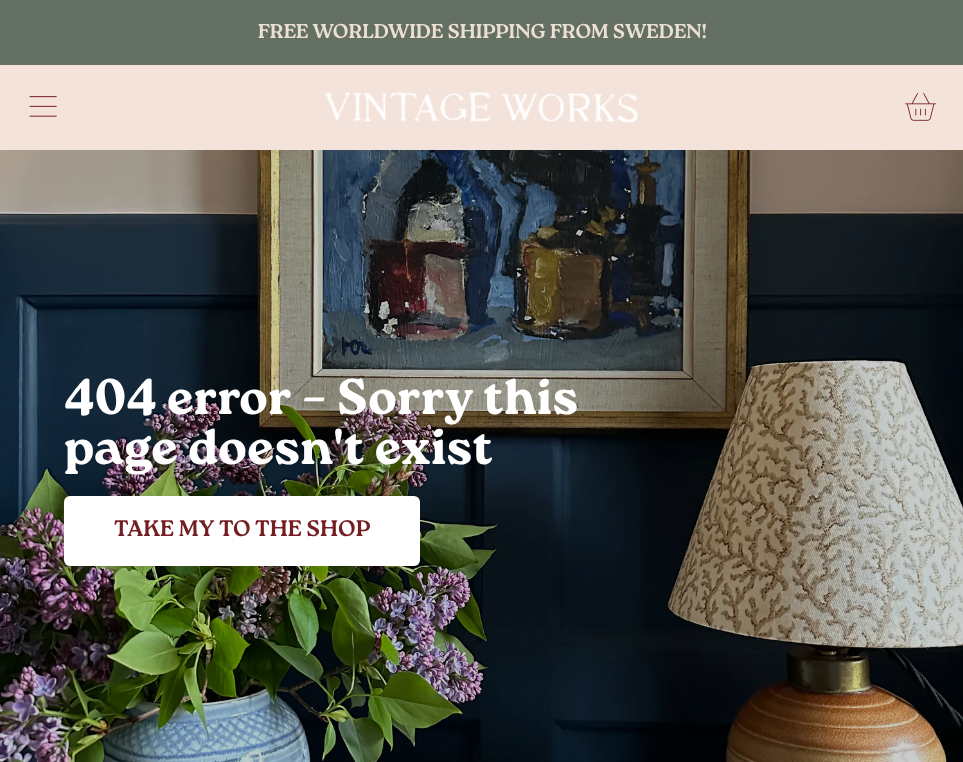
<svg xmlns="http://www.w3.org/2000/svg" width="963" height="762">
	<rect width="100%" height="100%" fill="#F4E3DA" />
	<rect x="0" y="0" width="963" height="65" fill="#657064" />
	<text x="258" y="38" font-family="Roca" font-size="20" font-weight="700" fill="#ECE0D2">FREE WORLDWIDE SHIPPING FROM SWEDEN!</text>
	<image x="29" y="96" width="28" height="21" href="assets/img1.png" />
	<image x="325" y="92" width="313" height="31" href="assets/img2.png" />
	<image x="905" y="93" width="32" height="28" href="assets/img3.png" />
	<image x="0" y="150" width="963" height="612" href="assets/img4.png" />
	<g font-family="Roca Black" font-size="50" font-weight="900" fill="#FFFFFF">
		<text x="64" y="414">404 error – Sorry this</text>
		<text x="64" y="464">page doesn't exist</text>
	</g>
	<rect x="64" y="496" width="356" height="70" rx="6" fill="#FFFFFF" />
	<text x="114" y="536" font-family="Roca" font-size="22.5" font-weight="700" fill="#741E23">TAKE MY TO THE SHOP</text>
</svg>
